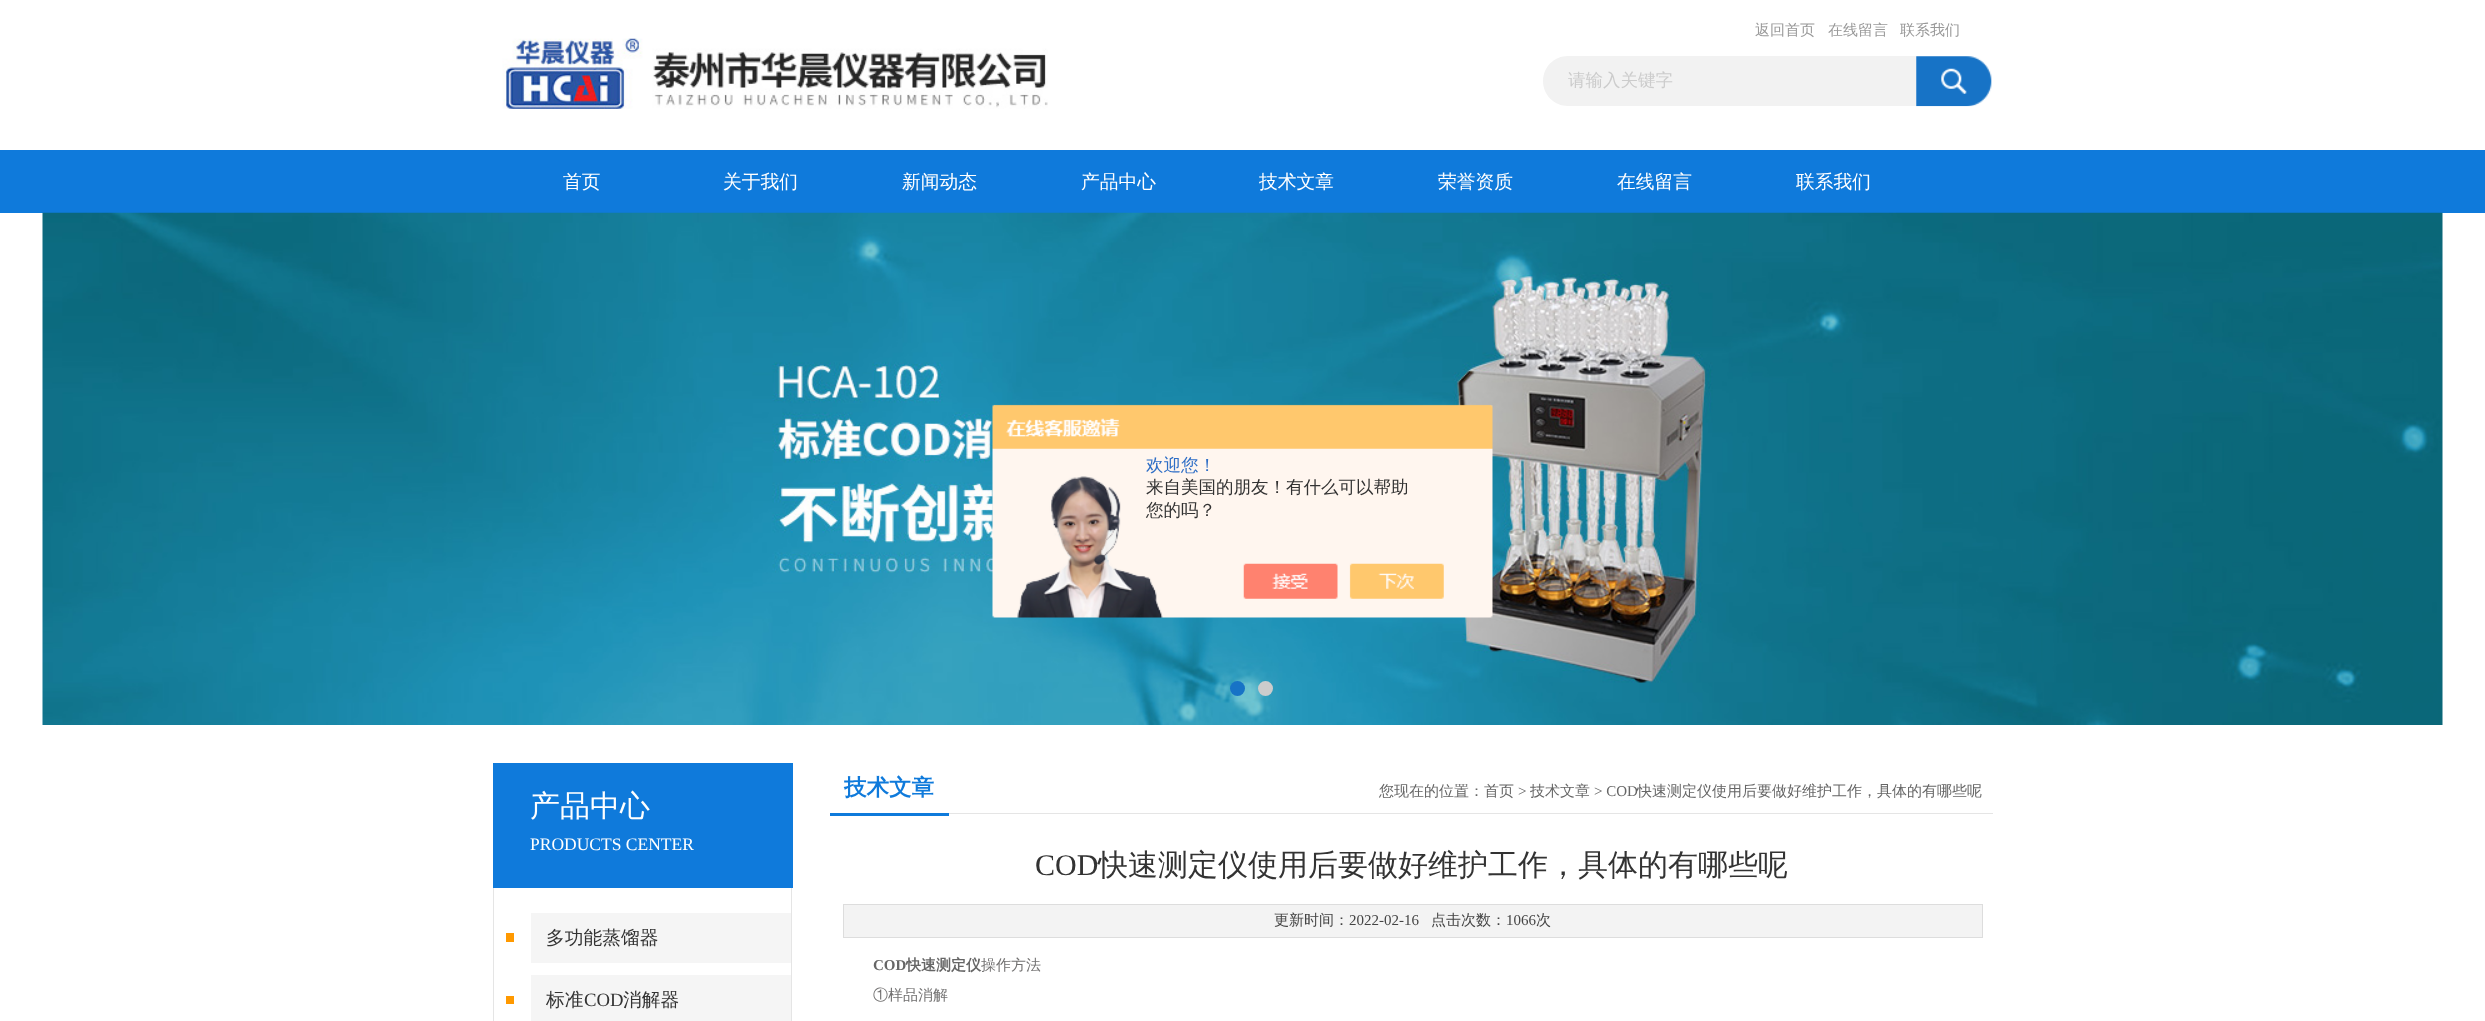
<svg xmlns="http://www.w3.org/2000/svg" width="2485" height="1021">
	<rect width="100%" height="100%" fill="#FFFFFF" />
	<image x="502" y="38" width="546" height="71" href="assets/img1.png" />
	<g font-family="WenQuanYi Zen Hei" font-size="15" font-weight="500" fill="#999999">
		<text x="1755" y="35">返回首页</text>
		<text x="1828" y="35">在线留言</text>
		<text x="1900" y="35">联系我们</text>
	</g>
	<path d="M1568 56H1916V106H1568C1554 106 1543 95 1543 81C1543 67 1554 56 1568 56Z" fill="#F2F2F2" />
	<text x="1568" y="86" font-family="WenQuanYi Zen Hei" font-size="17.5" font-weight="500" fill="#CCCCCC">请输入关键字</text>
	<image x="1916" y="56" width="76" height="51" href="assets/img2.png" />
	<rect x="0" y="150" width="2485" height="63" fill="#0F7ADB" />
	<g font-family="WenQuanYi Zen Hei" font-size="18.75" font-weight="500" fill="#FFFFFF">
		<text x="563" y="188">首页</text>
		<text x="723" y="188">关于我们</text>
		<text x="902" y="188">新闻动态</text>
		<text x="1081" y="188">产品中心</text>
		<text x="1259" y="188">技术文章</text>
		<text x="1438" y="188">荣誉资质</text>
		<text x="1617" y="188">在线留言</text>
		<text x="1796" y="188">联系我们</text>
	</g>
	<image x="42" y="212" width="2401" height="513" href="assets/img3.png" />
	<circle cx="1237.5" cy="688.5" r="7.5" fill="#1773C6" />
	<circle cx="1265.5" cy="688.5" r="7.5" fill="#CCCCCC" />
	<image x="992" y="404" width="501" height="214" href="assets/img4.png" />
	<text x="1146" y="471" font-family="WenQuanYi Zen Hei" font-size="17.5" font-weight="500" fill="#2E6EC6">欢迎您！</text>
	<g font-family="WenQuanYi Zen Hei" font-size="17.5" font-weight="500" fill="#333333">
		<text x="1146" y="493">来自美国的朋友！有什么可以帮助</text>
		<text x="1146" y="516">您的吗？</text>
	</g>
	<rect x="493" y="763" width="300" height="125" fill="#0F7ADB" />
	<text x="530" y="816" font-family="WenQuanYi Zen Hei" font-size="30" font-weight="500" fill="#FFFFFF">产品中心</text>
	<text x="530" y="850" font-family="Liberation Serif" font-size="17.5" fill="#FFFFFF">PRODUCTS CENTER</text>
	<rect x="791" y="888" width="1" height="133" fill="#E5E5E5" />
	<rect x="493" y="888" width="1" height="133" fill="#E5E5E5" />
	<rect x="506" y="933" width="8" height="9" fill="#FF9900" />
	<rect x="531" y="913" width="260" height="50" fill="#F5F5F5" />
	<text x="546" y="944" font-family="WenQuanYi Zen Hei" font-size="18.75" font-weight="500" fill="#333333">多功能蒸馏器</text>
	<rect x="506" y="996" width="8" height="8" fill="#FF9900" />
	<rect x="531" y="975" width="260" height="46" fill="#F5F5F5" />
	<text x="546" y="1006" font-family="WenQuanYi Zen Hei" font-size="18.75" font-weight="500" fill="#333333">标准</text>
	<text x="584" y="1006" font-family="Liberation Serif" font-size="18.75" fill="#333333">COD</text>
	<text x="623" y="1006" font-family="WenQuanYi Zen Hei" font-size="18.75" font-weight="500" fill="#333333">消解器</text>
	<rect x="949" y="813" width="1044" height="1" fill="#E5E5E5" />
	<rect x="830" y="813" width="119" height="3" fill="#0F7ADB" />
	<text x="844" y="795" font-family="WenQuanYi Zen Hei" font-size="22.5" font-weight="700" fill="#0F7ADB">技术文章</text>
	<text x="1379" y="796" font-family="WenQuanYi Zen Hei" font-size="15" font-weight="500" fill="#666666">您现在的位置：首页</text>
	<text x="1518" y="796" font-family="Liberation Serif" font-size="15" fill="#666666">&gt;</text>
	<text x="1530" y="796" font-family="WenQuanYi Zen Hei" font-size="15" font-weight="500" fill="#666666">技术文章</text>
	<text x="1594" y="796" font-family="Liberation Serif" font-size="15" fill="#666666">&gt; COD</text>
	<text x="1637" y="796" font-family="WenQuanYi Zen Hei" font-size="15" font-weight="500" fill="#666666">快速测定仪使用后要做好维护工作，具体的有哪些呢</text>
	<text x="1035" y="875" font-family="Liberation Serif" font-size="30" fill="#333333">COD</text>
	<text x="1098" y="875" font-family="WenQuanYi Zen Hei" font-size="30" font-weight="500" fill="#333333">快速测定仪使用后要做好维护工作，具体的有哪些呢</text>
	<rect x="843.5" y="904.5" width="1139" height="33" fill="#F3F3F3" stroke="#DDDDDD" />
	<text x="1274" y="925" font-family="WenQuanYi Zen Hei" font-size="15" font-weight="500" fill="#444444">更新时间：</text>
	<text x="1349" y="925" font-family="Liberation Serif" font-size="15" fill="#444444">2022-02-16</text>
	<text x="1431" y="925" font-family="WenQuanYi Zen Hei" font-size="15" font-weight="500" fill="#444444">点击次数：</text>
	<text x="1506" y="925" font-family="Liberation Serif" font-size="15" fill="#444444">1066</text>
	<text x="1536" y="925" font-family="WenQuanYi Zen Hei" font-size="15" font-weight="500" fill="#444444">次</text>
	<text x="873" y="970" font-family="Liberation Serif" font-size="15" font-weight="700" fill="#666666">COD</text>
	<text x="906" y="970" font-family="WenQuanYi Zen Hei" font-size="15" font-weight="700" fill="#666666">快速测定仪</text>
	<g font-family="WenQuanYi Zen Hei" font-size="15" font-weight="500" fill="#727171">
		<text x="981" y="970">操作方法</text>
		<text x="873" y="1000">①样品消解</text>
	</g>
</svg>
